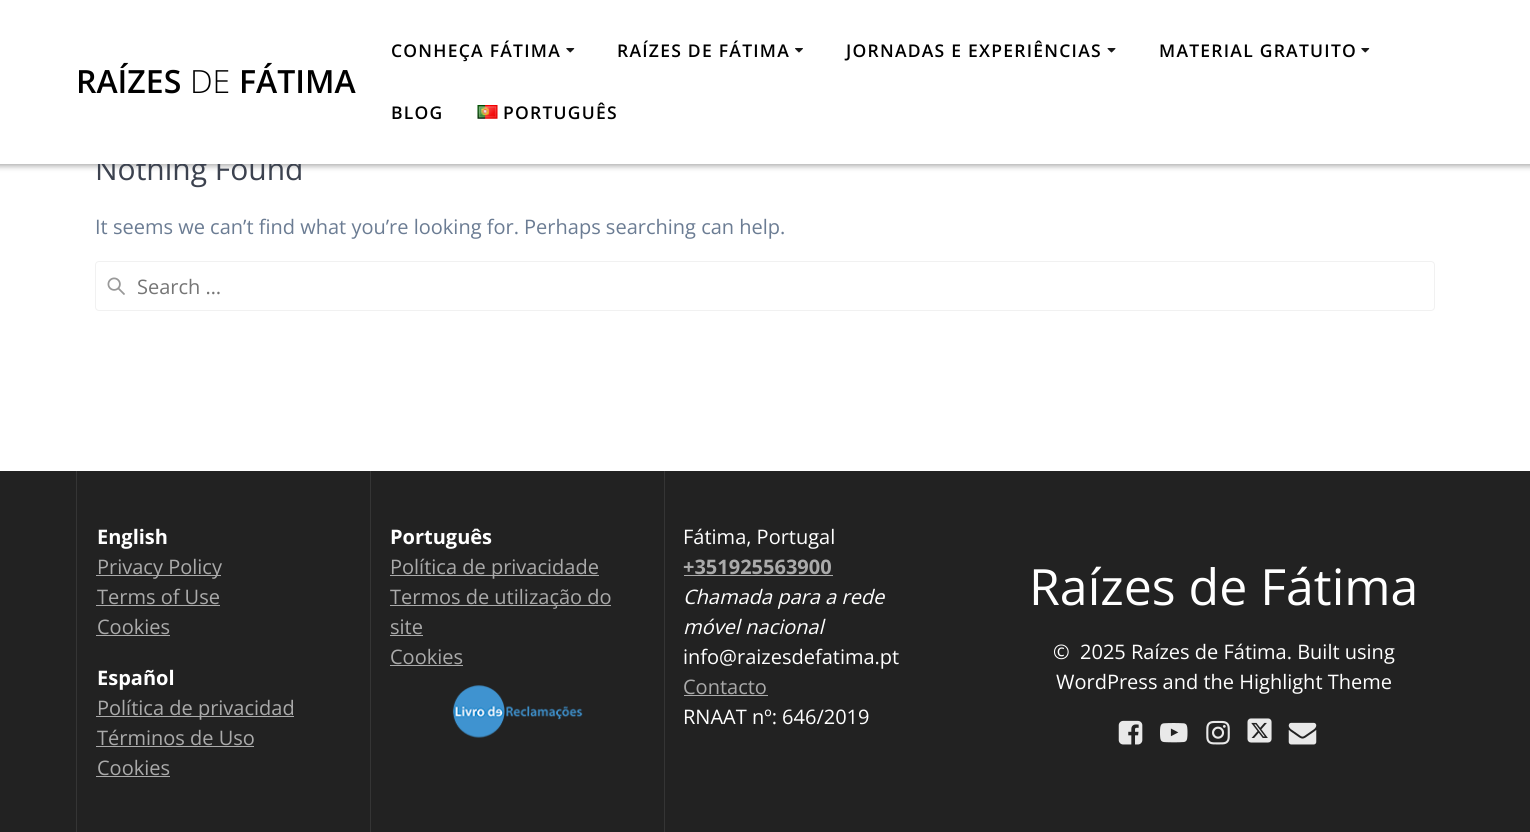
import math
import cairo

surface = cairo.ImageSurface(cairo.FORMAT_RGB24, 1530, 832)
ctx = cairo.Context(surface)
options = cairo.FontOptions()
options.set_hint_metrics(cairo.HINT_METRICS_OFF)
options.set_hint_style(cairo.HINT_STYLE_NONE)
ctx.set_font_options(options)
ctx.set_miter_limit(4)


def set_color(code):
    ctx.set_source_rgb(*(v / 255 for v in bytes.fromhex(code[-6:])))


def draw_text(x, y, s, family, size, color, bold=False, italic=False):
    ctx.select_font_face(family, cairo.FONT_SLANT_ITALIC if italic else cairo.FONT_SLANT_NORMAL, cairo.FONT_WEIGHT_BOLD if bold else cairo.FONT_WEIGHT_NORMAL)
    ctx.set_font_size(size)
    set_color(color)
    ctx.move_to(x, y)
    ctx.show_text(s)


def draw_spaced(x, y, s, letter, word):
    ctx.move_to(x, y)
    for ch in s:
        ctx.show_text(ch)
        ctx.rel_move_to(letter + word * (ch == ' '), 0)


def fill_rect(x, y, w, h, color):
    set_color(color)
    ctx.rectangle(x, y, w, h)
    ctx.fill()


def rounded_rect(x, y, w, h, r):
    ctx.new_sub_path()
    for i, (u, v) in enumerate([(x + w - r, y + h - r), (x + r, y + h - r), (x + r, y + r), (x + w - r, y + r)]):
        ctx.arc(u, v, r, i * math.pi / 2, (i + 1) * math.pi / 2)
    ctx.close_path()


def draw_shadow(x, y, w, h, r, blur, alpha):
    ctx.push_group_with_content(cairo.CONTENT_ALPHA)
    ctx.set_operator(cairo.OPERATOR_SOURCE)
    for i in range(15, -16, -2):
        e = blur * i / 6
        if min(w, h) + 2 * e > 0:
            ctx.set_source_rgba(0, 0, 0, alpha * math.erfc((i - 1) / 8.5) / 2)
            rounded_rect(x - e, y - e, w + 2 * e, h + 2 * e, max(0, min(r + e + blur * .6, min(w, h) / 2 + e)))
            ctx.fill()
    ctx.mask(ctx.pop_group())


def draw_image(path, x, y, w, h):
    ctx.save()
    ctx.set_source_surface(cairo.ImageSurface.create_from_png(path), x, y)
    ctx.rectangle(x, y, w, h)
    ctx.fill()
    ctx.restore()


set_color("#ffffff")
ctx.paint()
set_color("#000000")
draw_shadow(-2, -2, 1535, 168, 0, 3, 0.33)
draw_text(95, 180, "Nothing Found", "Open Sans", 30, "#3c424f")
fill_rect(0, 0, 1530, 164, "#ffffff")
draw_text(76, 93, "RAÍZES", "Open Sans SemiBold", 32, "#000000")
draw_text(190, 93, "DE", "Open Sans Light", 32, "#000000")
draw_text(239, 93, "FÁTIMA", "Open Sans SemiBold", 32, "#000000")
ctx.set_font_size(17.5)
draw_spaced(391, 57, "CONHEÇA FÁTIMA", 1.25, 0)
draw_image("assets/img1.png", 566, 48, 9, 5)
draw_spaced(617, 57, "RAÍZES DE FÁTIMA", 1.25, 0)
draw_image("assets/img2.png", 795, 48, 8, 5)
draw_spaced(846, 57, "JORNADAS E EXPERIÊNCIAS", 1.25, 0)
draw_image("assets/img3.png", 1107, 48, 9, 5)
draw_spaced(1159, 57, "MATERIAL GRATUITO", 1.25, 0)
draw_image("assets/img1.png", 1361, 48, 9, 5)
draw_spaced(391, 119, "BLOG", 1.25, 0)
draw_image("assets/img4.png", 477, 105, 21, 14)
draw_spaced(503, 119, "PORTUGUÊS", 1.25, 0)
draw_text(95, 234, "It seems we can’t find what you’re looking for. Perhaps searching can help.", "Open Sans", 20, "#6b7c93")
draw_image("assets/img5.png", 107, 277, 18, 18)
rounded_rect(95.5, 261.5, 1339, 49, 3.5)
set_color("#f1f1f1")
ctx.set_line_width(1)
ctx.stroke()
draw_text(137, 294, "Search …", "Open Sans", 20, "#757575")
fill_rect(0, 471, 1530, 361, "#222222")
fill_rect(76, 471, 1, 361, "#353535")
draw_text(97, 544, "English", "Open Sans", 20, "#ffffff", bold=True)
fill_rect(96, 575, 125, 1, "#aaaaaa")
draw_text(97, 574, "Privacy Policy", "Open Sans", 20, "#aaaaaa")
draw_text(97, 604, "Terms of Use", "Open Sans", 20, "#aaaaaa")
fill_rect(96, 605, 124, 1, "#aaaaaa")
draw_text(97, 634, "Cookies", "Open Sans", 20, "#aaaaaa")
fill_rect(96, 635, 74, 1, "#aaaaaa")
draw_text(97, 685, "Español", "Open Sans", 20, "#ffffff", bold=True)
fill_rect(96, 716, 198, 1, "#aaaaaa")
draw_text(97, 715, "Política de privacidad", "Open Sans", 20, "#aaaaaa")
draw_text(97, 745, "Términos de Uso", "Open Sans", 20, "#aaaaaa")
fill_rect(96, 746, 158, 1, "#aaaaaa")
draw_text(97, 775, "Cookies", "Open Sans", 20, "#aaaaaa")
fill_rect(96, 776, 74, 1, "#aaaaaa")
fill_rect(370, 471, 1, 361, "#353535")
draw_text(390, 544, "Português", "Open Sans", 20, "#ffffff", bold=True)
fill_rect(390, 575, 209, 1, "#aaaaaa")
draw_text(390, 574, "Política de privacidade", "Open Sans", 20, "#aaaaaa")
fill_rect(390, 605, 221, 1, "#aaaaaa")
draw_text(390, 604, "Termos de utilização do", "Open Sans", 20, "#aaaaaa")
draw_text(390, 634, "site", "Open Sans", 20, "#aaaaaa")
fill_rect(390, 635, 33, 1, "#aaaaaa")
draw_text(390, 664, "Cookies", "Open Sans", 20, "#aaaaaa")
fill_rect(390, 665, 73, 1, "#aaaaaa")
draw_image("assets/img6.png", 452, 685, 131, 53)
fill_rect(664, 471, 1, 361, "#353535")
draw_text(683, 544, "Fátima, Portugal", "Open Sans", 20, "#ffffff")
draw_text(683, 574, "+351925563900", "Open Sans", 20, "#aaaaaa", bold=True)
fill_rect(684, 575, 149, 1, "#aaaaaa")
draw_text(683, 604, "Chamada para a rede", "Open Sans", 20, "#ffffff", italic=True)
draw_text(683, 634, "móvel nacional", "Open Sans", 20, "#ffffff", italic=True)
draw_text(683, 664, "info@raizesdefatima.pt", "Open Sans", 20, "#ffffff")
draw_text(683, 694, "Contacto", "Open Sans", 20, "#aaaaaa")
fill_rect(684, 695, 84, 1, "#aaaaaa")
draw_text(683, 724, "RNAAT nº: 646/2019", "Open Sans", 20, "#ffffff")
draw_text(1029, 605, "Raízes de Fátima", "Open Sans", 50, "#ffffff")
draw_text(1053, 659, "©  2025 Raízes de Fátima. Built using", "Open Sans", 20, "#ffffff")
draw_text(1056, 689, "WordPress and the Highlight Theme", "Open Sans", 20, "#ffffff")
draw_image("assets/img7.png", 1118, 720, 25, 25)
draw_image("assets/img8.png", 1160, 723, 28, 20)
draw_image("assets/img9.png", 1206, 720, 24, 25)
draw_image("assets/img10.png", 1247, 718, 25, 25)
draw_image("assets/img11.png", 1288, 722, 29, 23)
surface.write_to_png("output.png")
